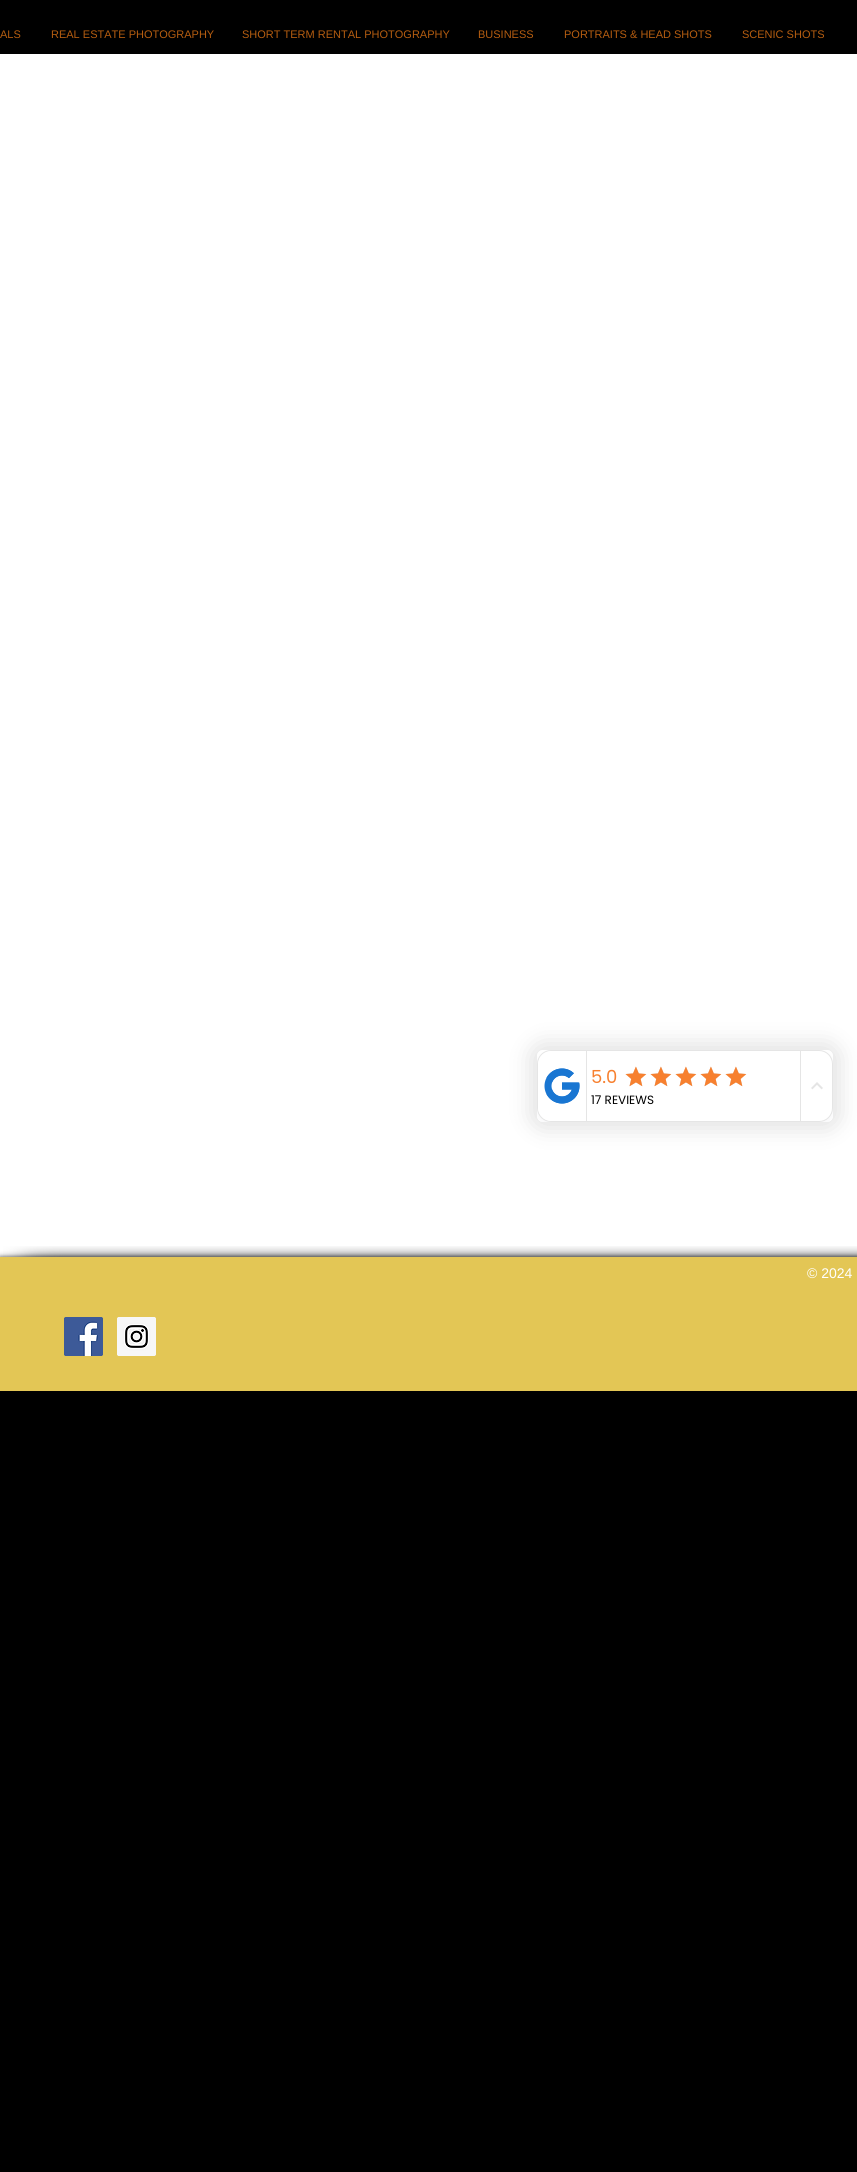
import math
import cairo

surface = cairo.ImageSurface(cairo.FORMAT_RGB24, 857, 2172)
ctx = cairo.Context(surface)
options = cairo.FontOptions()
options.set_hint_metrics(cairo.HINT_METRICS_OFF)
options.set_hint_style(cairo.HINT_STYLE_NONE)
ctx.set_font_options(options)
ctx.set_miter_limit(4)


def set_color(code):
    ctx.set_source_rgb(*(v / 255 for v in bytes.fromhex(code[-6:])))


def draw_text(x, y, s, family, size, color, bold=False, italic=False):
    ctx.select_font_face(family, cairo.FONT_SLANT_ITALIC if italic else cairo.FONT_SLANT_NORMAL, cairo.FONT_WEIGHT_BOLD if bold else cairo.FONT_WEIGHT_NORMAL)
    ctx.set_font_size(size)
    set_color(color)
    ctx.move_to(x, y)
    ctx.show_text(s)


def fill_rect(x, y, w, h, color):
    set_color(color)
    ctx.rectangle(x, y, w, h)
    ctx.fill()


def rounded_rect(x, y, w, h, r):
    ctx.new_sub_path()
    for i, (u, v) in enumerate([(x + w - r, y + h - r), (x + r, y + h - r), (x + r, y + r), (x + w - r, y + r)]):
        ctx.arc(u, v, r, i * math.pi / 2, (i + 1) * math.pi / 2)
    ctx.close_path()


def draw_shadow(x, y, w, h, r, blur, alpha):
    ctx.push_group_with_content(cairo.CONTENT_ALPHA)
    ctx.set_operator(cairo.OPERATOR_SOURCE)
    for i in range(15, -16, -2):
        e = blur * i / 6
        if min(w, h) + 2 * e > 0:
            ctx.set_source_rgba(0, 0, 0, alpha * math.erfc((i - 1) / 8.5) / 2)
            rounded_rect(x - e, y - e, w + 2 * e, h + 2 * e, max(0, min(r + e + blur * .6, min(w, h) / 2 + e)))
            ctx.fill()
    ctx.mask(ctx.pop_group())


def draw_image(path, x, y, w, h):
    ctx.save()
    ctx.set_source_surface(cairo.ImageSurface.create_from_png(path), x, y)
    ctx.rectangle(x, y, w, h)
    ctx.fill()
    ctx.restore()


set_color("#000000")
ctx.paint()
draw_text(0, 38, "ALS", "Liberation Sans", 11, "#b55d10")
draw_text(51, 38, "REAL ESTATE PHOTOGRAPHY", "Liberation Sans", 11, "#b55d10")
draw_text(242, 38, "SHORT TERM RENTAL PHOTOGRAPHY", "Liberation Sans", 11, "#b55d10")
draw_text(478, 38, "BUSINESS", "Liberation Sans", 11, "#b55d10")
draw_text(564, 38, "PORTRAITS & HEAD SHOTS", "Liberation Sans", 11, "#b55d10")
draw_text(742, 38, "SCENIC SHOTS", "Liberation Sans", 11, "#b55d10")
fill_rect(0, 54, 857, 1203, "#ffffff")
set_color("#000000")
draw_shadow(0, 1257, 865, 134, 0, 2.5, 0.7)
fill_rect(0, 1257, 857, 134, "#e3c655")
draw_image("assets/img1.png", 3, 1246, 97, 11)
draw_image("assets/img2.png", 100, 1246, 757, 11)
draw_text(807, 1278, "© 2024", "Liberation Sans", 14, "#ffffff")
draw_image("assets/img3.png", 64, 1317, 39, 39)
draw_image("assets/img4.png", 117, 1317, 39, 39)
ctx.save()
ctx.set_fill_rule(cairo.FILL_RULE_EVEN_ODD)
ctx.new_path()
ctx.move_to(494, 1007)
ctx.line_to(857, 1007)
ctx.line_to(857, 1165)
ctx.line_to(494, 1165)
ctx.close_path()
ctx.move_to(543, 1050)
ctx.line_to(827, 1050)
ctx.curve_to(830.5, 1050, 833, 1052.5, 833, 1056)
ctx.line_to(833, 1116)
ctx.curve_to(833, 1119.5, 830.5, 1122, 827, 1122)
ctx.line_to(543, 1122)
ctx.curve_to(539.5, 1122, 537, 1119.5, 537, 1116)
ctx.line_to(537, 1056)
ctx.curve_to(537, 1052.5, 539.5, 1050, 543, 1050)
ctx.close_path()
ctx.clip()
set_color("#000000")
draw_shadow(531, 1044, 308, 84, 12, 12, 0.12)
ctx.restore()
ctx.save()
rounded_rect(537, 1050, 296, 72, 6)
ctx.clip()
set_color("#4c4c6d")
draw_shadow(537, 1054, 296, 72, 14, 6, 0.06)
ctx.restore()
rounded_rect(537.5, 1050.5, 295, 71, 13.5)
ctx.fill_preserve()
set_color("#e5e5e5")
ctx.set_line_width(1)
ctx.stroke()
set_color("#ffffff")
ctx.new_path()
ctx.move_to(552, 1051)
ctx.line_to(587, 1051)
ctx.line_to(587, 1121)
ctx.line_to(552, 1121)
ctx.curve_to(544.5, 1121, 538, 1114.5, 538, 1107)
ctx.line_to(538, 1065)
ctx.curve_to(538, 1057.5, 544.5, 1051, 552, 1051)
ctx.close_path()
ctx.fill()
fill_rect(586, 1051, 1, 70, "#e5e5e5")
draw_image("assets/img5.png", 544, 1068, 36, 36)
fill_rect(800, 1051, 1, 70, "#e5e5e5")
draw_text(591, 1083, "5.0", "Poppins", 18, "#f7802f")
draw_image("assets/img7.png", 625, 1067, 21, 19)
draw_image("assets/img6.png", 625, 1066, 22, 21)
draw_image("assets/img7.png", 650, 1067, 21, 19)
draw_image("assets/img6.png", 650, 1066, 22, 21)
draw_image("assets/img7.png", 675, 1067, 21, 19)
draw_image("assets/img6.png", 675, 1066, 22, 21)
draw_image("assets/img7.png", 700, 1067, 21, 19)
draw_image("assets/img6.png", 700, 1066, 22, 21)
draw_image("assets/img7.png", 725, 1067, 21, 19)
draw_image("assets/img6.png", 725, 1066, 22, 21)
draw_text(591, 1104, "17 REVIEWS", "Poppins", 12, "#000000")
draw_image("assets/img8.png", 811, 1082, 12, 8)
surface.write_to_png("output.png")
